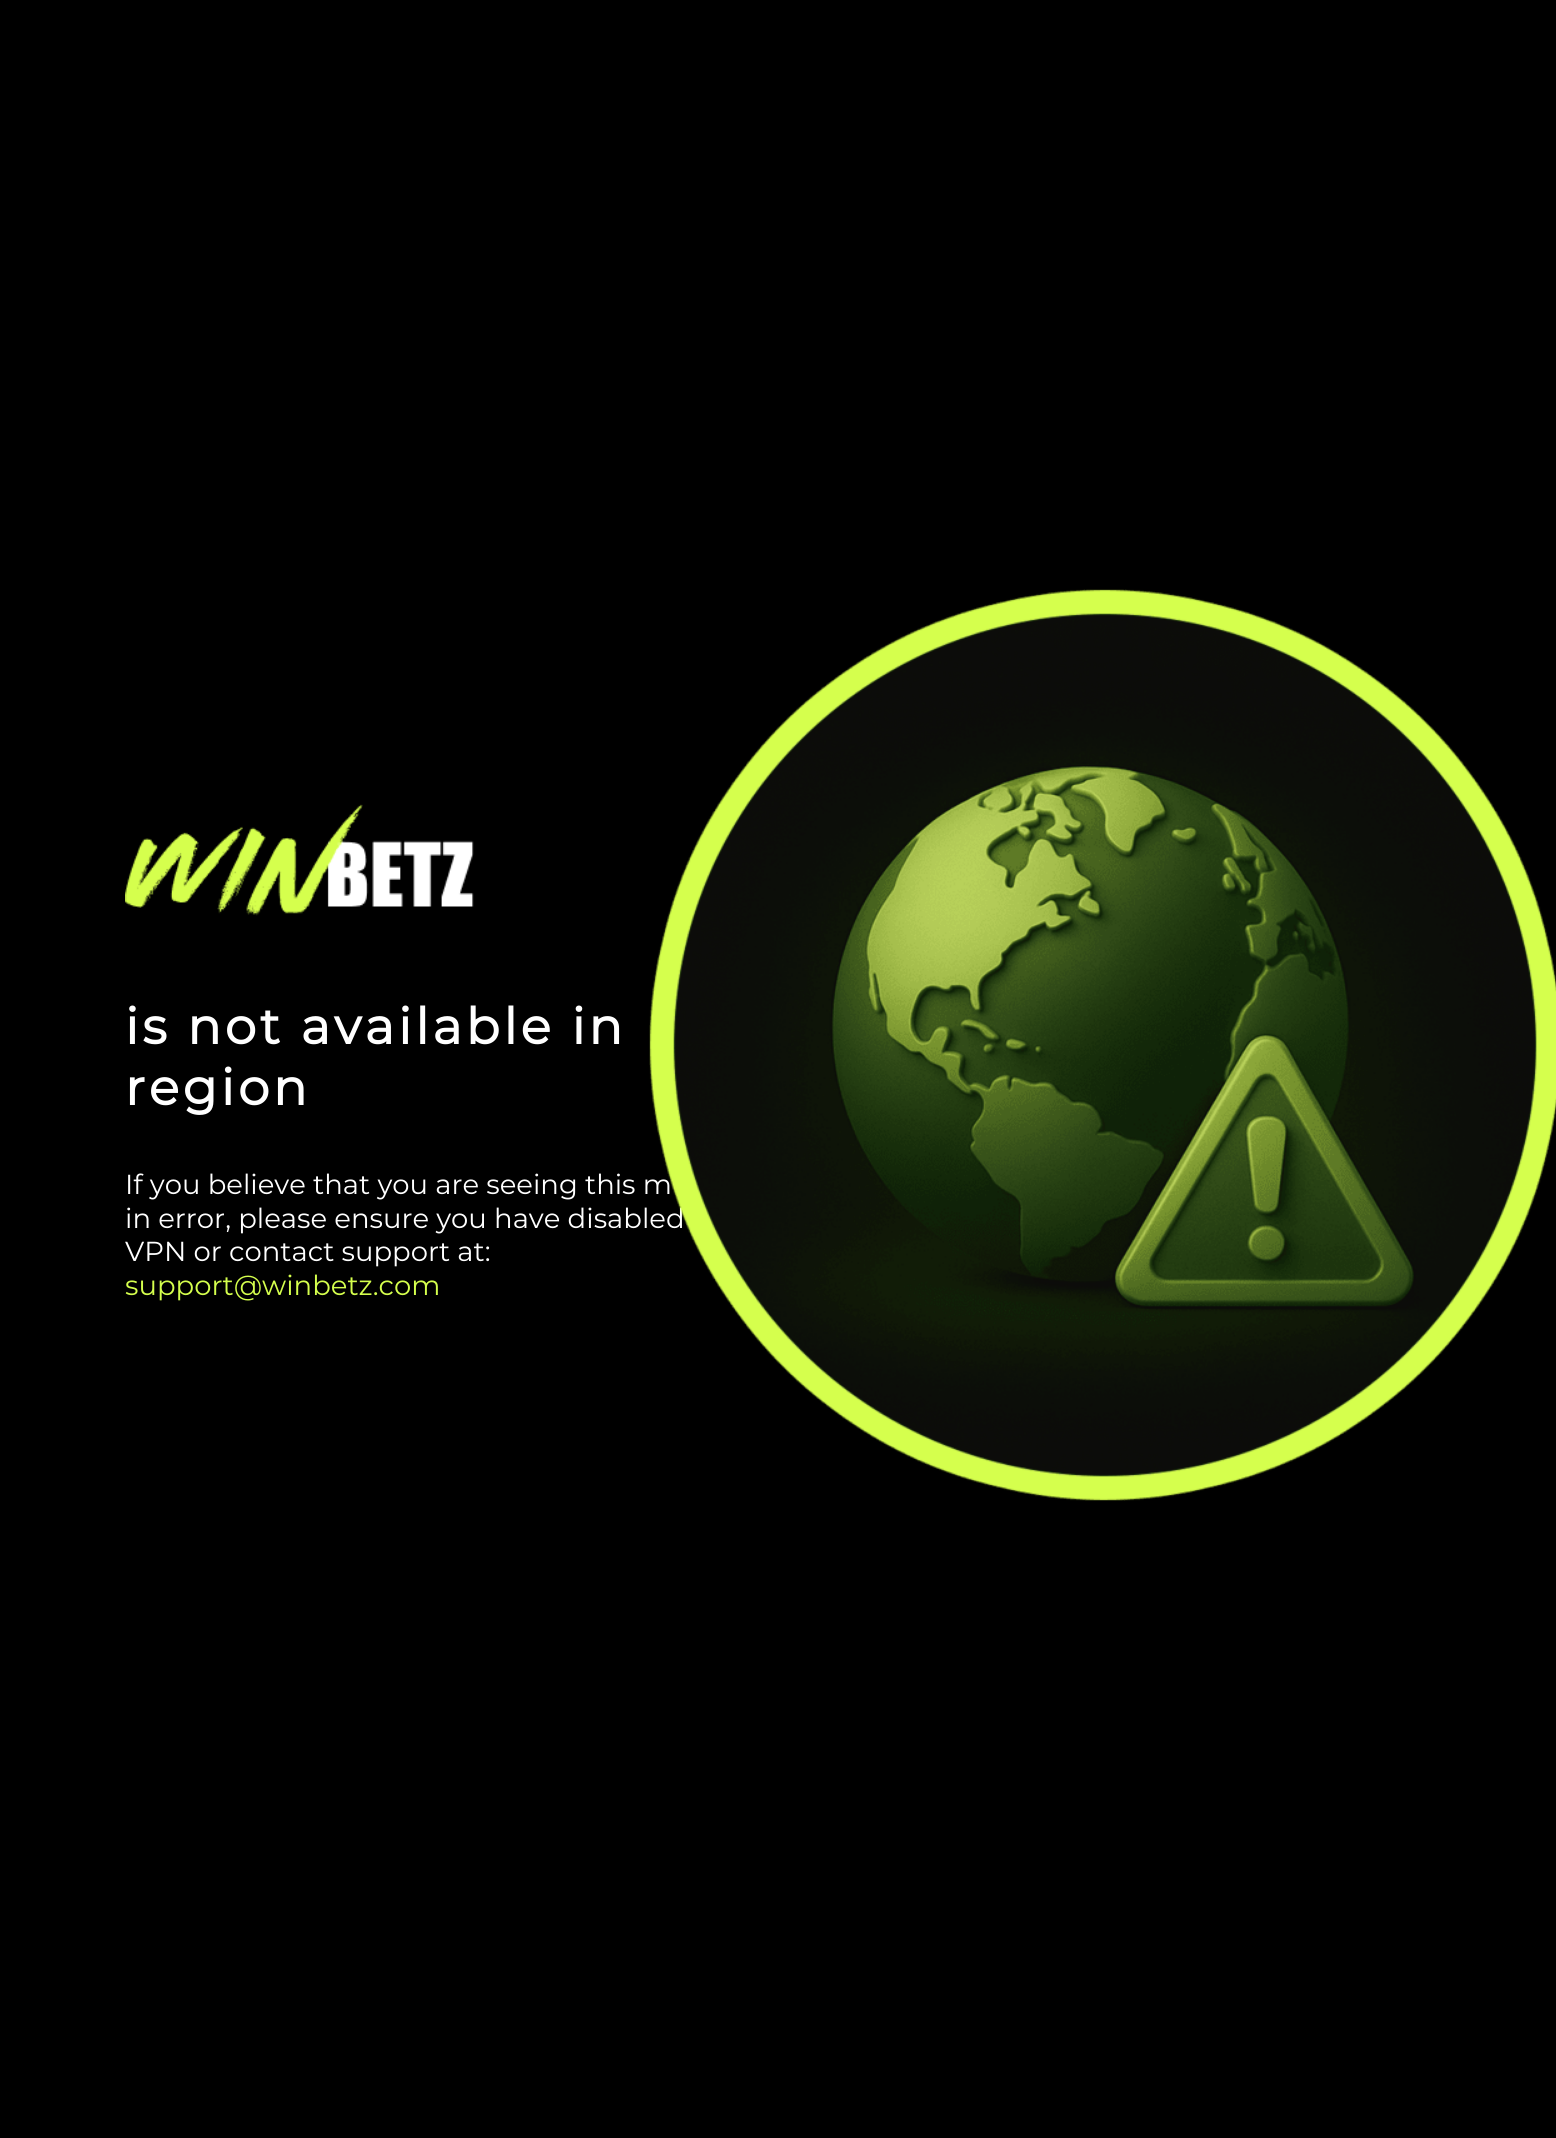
import math
import cairo

surface = cairo.ImageSurface(cairo.FORMAT_RGB24, 1556, 2138)
ctx = cairo.Context(surface)
options = cairo.FontOptions()
options.set_hint_metrics(cairo.HINT_METRICS_OFF)
options.set_hint_style(cairo.HINT_STYLE_NONE)
ctx.set_font_options(options)
ctx.set_miter_limit(4)


def set_color(code):
    ctx.set_source_rgb(*(v / 255 for v in bytes.fromhex(code[-6:])))


def draw_text(x, y, s, family, size, color, bold=False, italic=False):
    ctx.select_font_face(family, cairo.FONT_SLANT_ITALIC if italic else cairo.FONT_SLANT_NORMAL, cairo.FONT_WEIGHT_BOLD if bold else cairo.FONT_WEIGHT_NORMAL)
    ctx.set_font_size(size)
    set_color(color)
    ctx.move_to(x, y)
    ctx.show_text(s)


def draw_spaced(x, y, s, letter, word):
    ctx.move_to(x, y)
    for ch in s:
        ctx.show_text(ch)
        ctx.rel_move_to(letter + word * (ch == ' '), 0)


def draw_image(path, x, y, w, h):
    ctx.save()
    ctx.set_source_surface(cairo.ImageSurface.create_from_png(path), x, y)
    ctx.rectangle(x, y, w, h)
    ctx.fill()
    ctx.restore()


set_color("#000000")
ctx.paint()
draw_image("assets/img1.png", 125, 804, 349, 112)
ctx.select_font_face("Montserrat", cairo.FONT_SLANT_NORMAL, cairo.FONT_WEIGHT_BOLD)
ctx.set_font_size(50)
set_color("#ffffff")
draw_spaced(125, 1044, "is not available in", 3.75, 0)
draw_spaced(125, 1105, "region", 3.75, 0)
draw_text(125, 1194, "If you believe that you are seeing this m", "Montserrat", 27.5, "#ffffff")
draw_text(125, 1228, "in error, please ensure you have disabled", "Montserrat", 27.5, "#ffffff")
draw_text(125, 1261, "VPN or contact support at:", "Montserrat", 27.5, "#ffffff")
draw_text(125, 1295, "support@winbetz.com", "Montserrat", 27.5, "#d5ff4d")
draw_image("assets/img2.png", 649, 589, 907, 912)
surface.write_to_png("output.png")
